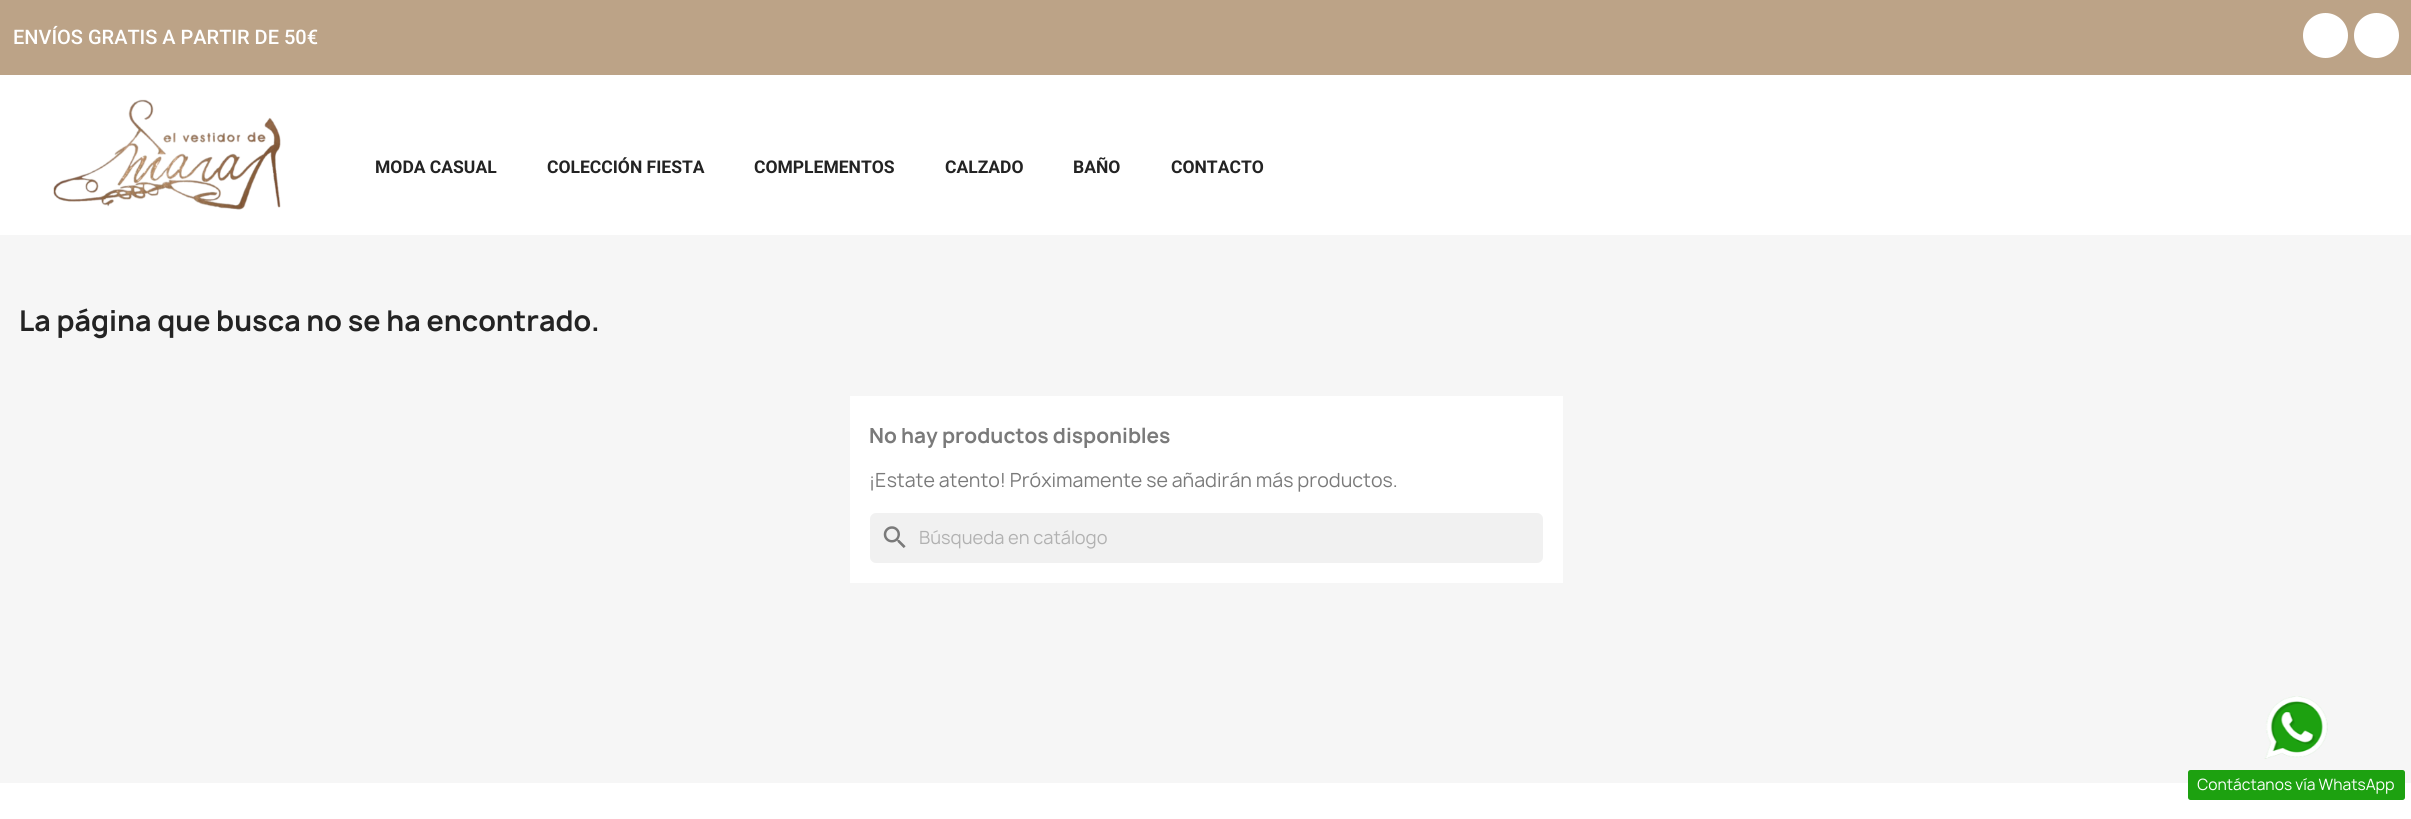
import math
import cairo

surface = cairo.ImageSurface(cairo.FORMAT_RGB24, 2411, 819)
ctx = cairo.Context(surface)
options = cairo.FontOptions()
options.set_hint_metrics(cairo.HINT_METRICS_OFF)
options.set_hint_style(cairo.HINT_STYLE_NONE)
ctx.set_font_options(options)
ctx.set_miter_limit(4)


def set_color(code):
    ctx.set_source_rgb(*(v / 255 for v in bytes.fromhex(code[-6:])))


def draw_text(x, y, s, family, size, color, bold=False, italic=False):
    ctx.select_font_face(family, cairo.FONT_SLANT_ITALIC if italic else cairo.FONT_SLANT_NORMAL, cairo.FONT_WEIGHT_BOLD if bold else cairo.FONT_WEIGHT_NORMAL)
    ctx.set_font_size(size)
    set_color(color)
    ctx.move_to(x, y)
    ctx.show_text(s)


def fill_rect(x, y, w, h, color):
    set_color(color)
    ctx.rectangle(x, y, w, h)
    ctx.fill()


def rounded_rect(x, y, w, h, r):
    ctx.new_sub_path()
    for i, (u, v) in enumerate([(x + w - r, y + h - r), (x + r, y + h - r), (x + r, y + r), (x + w - r, y + r)]):
        ctx.arc(u, v, r, i * math.pi / 2, (i + 1) * math.pi / 2)
    ctx.close_path()


def draw_image(path, x, y, w, h):
    ctx.save()
    ctx.set_source_surface(cairo.ImageSurface.create_from_png(path), x, y)
    ctx.rectangle(x, y, w, h)
    ctx.fill()
    ctx.restore()


set_color("#ffffff")
ctx.paint()
fill_rect(0, 0, 2411, 75, "#bca387")
draw_text(13, 44, "ENVÍOS GRATIS A PARTIR DE 50€", "Roboto Medium", 20, "#ffffff")
ctx.new_path()
ctx.arc(2325.5, 35.5, 22.5, 0, 2 * math.pi)
ctx.fill()
ctx.arc(2376.5, 35.5, 22.5, 0, 2 * math.pi)
ctx.fill()
draw_image("assets/img1.png", 53, 99, 228, 111)
draw_text(375, 173, "MODA CASUAL", "Roboto", 17.5, "#232323", bold=True)
draw_text(547, 173, "COLECCIÓN FIESTA", "Roboto", 17.5, "#232323", bold=True)
draw_text(754, 173, "COMPLEMENTOS", "Roboto", 17.5, "#232323", bold=True)
draw_text(945, 173, "CALZADO", "Roboto", 17.5, "#232323", bold=True)
draw_text(1073, 173, "BAÑO", "Roboto", 17.5, "#232323", bold=True)
draw_text(1171, 173, "CONTACTO", "Roboto", 17.5, "#232323", bold=True)
fill_rect(0, 235, 2411, 548, "#f6f6f6")
draw_image("assets/img2.png", 2264, 696, 64, 63)
set_color("#1da110")
rounded_rect(2188, 770, 217, 30, 2.5)
ctx.fill()
draw_text(2197, 790, "Contáctanos vía WhatsApp", "Manrope", 15, "#ffffff")
draw_text(19, 331, "La página que busca no se ha encontrado.", "Manrope", 27.5, "#232323", bold=True)
fill_rect(850, 396, 713, 187, "#ffffff")
draw_text(869, 443, "No hay productos disponibles", "Manrope", 20, "#7a7a7a", bold=True)
draw_text(869, 487, "¡Estate atento! Próximamente se añadirán más productos.", "Manrope", 18.75, "#7a7a7a")
set_color("#f1f1f1")
rounded_rect(870, 513, 673, 50, 6)
ctx.fill()
draw_image("assets/img3.png", 883, 526, 23, 22)
draw_text(919, 544, "Búsqueda en catálogo", "Manrope", 17.5, "#b1b1b1")
surface.write_to_png("output.png")
